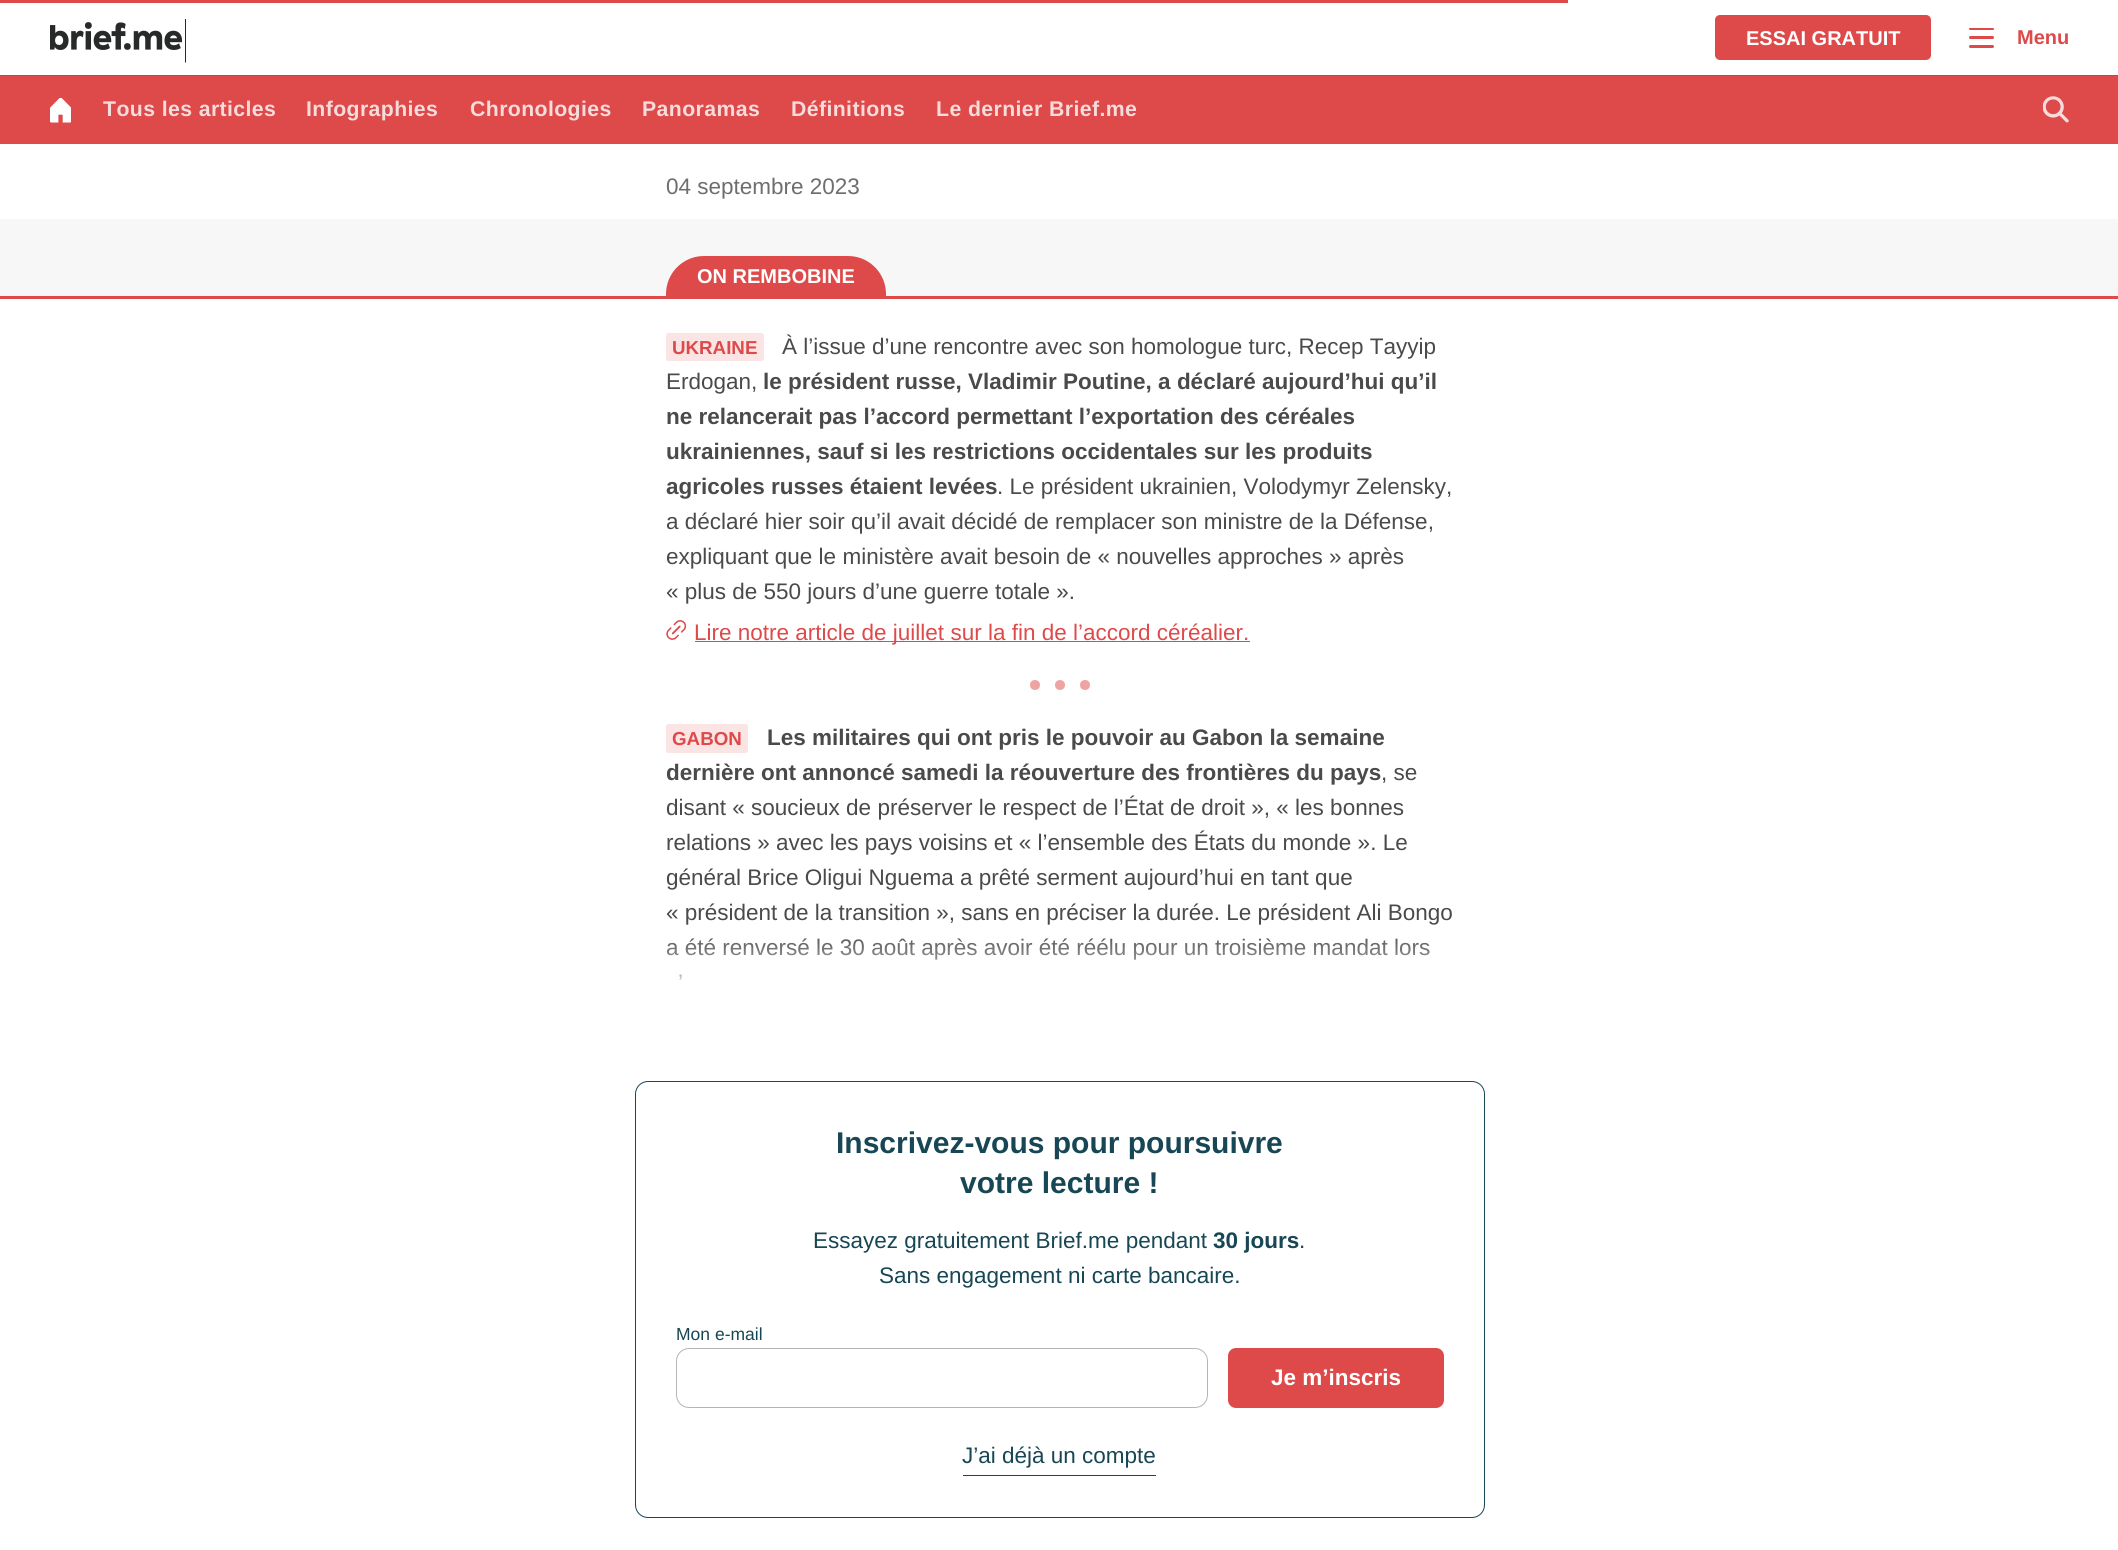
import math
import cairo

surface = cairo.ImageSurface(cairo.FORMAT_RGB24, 2118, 1550)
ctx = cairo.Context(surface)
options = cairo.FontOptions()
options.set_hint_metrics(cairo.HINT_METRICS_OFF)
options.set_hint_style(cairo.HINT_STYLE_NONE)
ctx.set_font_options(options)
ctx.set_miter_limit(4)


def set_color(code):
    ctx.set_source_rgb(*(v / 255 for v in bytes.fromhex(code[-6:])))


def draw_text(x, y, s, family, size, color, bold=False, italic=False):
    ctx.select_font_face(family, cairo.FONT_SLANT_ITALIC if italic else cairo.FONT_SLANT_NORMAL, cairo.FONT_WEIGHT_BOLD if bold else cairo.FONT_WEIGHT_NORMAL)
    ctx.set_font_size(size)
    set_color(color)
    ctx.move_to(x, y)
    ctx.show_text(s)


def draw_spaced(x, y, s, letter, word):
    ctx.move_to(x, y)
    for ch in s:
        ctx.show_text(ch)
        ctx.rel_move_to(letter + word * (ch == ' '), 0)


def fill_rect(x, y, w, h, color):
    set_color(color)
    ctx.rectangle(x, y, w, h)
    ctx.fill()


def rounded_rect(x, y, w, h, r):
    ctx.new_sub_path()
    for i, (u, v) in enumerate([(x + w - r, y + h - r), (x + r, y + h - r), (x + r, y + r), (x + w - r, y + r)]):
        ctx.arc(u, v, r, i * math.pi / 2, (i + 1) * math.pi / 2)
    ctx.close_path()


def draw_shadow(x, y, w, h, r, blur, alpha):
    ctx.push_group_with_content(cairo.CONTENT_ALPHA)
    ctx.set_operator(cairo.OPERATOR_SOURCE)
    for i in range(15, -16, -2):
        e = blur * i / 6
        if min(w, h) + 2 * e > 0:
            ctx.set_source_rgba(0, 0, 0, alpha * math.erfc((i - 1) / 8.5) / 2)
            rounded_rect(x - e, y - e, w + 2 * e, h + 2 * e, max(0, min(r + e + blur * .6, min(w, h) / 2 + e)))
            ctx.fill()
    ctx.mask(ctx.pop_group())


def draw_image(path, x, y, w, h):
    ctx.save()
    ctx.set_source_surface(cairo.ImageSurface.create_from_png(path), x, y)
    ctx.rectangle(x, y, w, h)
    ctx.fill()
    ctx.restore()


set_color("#ffffff")
ctx.paint()
fill_rect(0, 75, 2118, 69, "#de4949")
ctx.save()
ctx.rectangle(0, 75, 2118, 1)
ctx.clip()
set_color("#000000")
draw_shadow(0, 1, 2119, 75, 0, 0.5, 0.11)
ctx.restore()
fill_rect(0, 0, 1568, 3, "#de4949")
draw_image("assets/img1.png", 50, 19, 136, 44)
rounded_rect(1715, 15, 216, 45, 5)
ctx.fill()
draw_text(1746, 45, "ESSAI GRATUIT", "Liberation Sans", 20, "#ffffff", bold=True)
set_color("#de4949")
rounded_rect(1969, 28, 25, 2, 1)
ctx.fill()
rounded_rect(1969, 36, 25, 3, 1.5)
ctx.fill()
rounded_rect(1969, 45, 25, 3, 1.5)
ctx.fill()
draw_text(2017, 44, "Menu", "Liberation Sans", 20, "#de4949", bold=True)
draw_image("assets/img2.png", 50, 98, 21, 25)
ctx.set_font_size(21.25)
set_color("#f8dbdb")
draw_spaced(103, 116, "Tous les articles", 0.4, 0)
draw_spaced(306, 116, "Infographies", 0.4, 0)
draw_spaced(470, 116, "Chronologies", 0.4, 0)
draw_spaced(642, 116, "Panoramas", 0.4, 0)
draw_spaced(791, 116, "Définitions", 0.4, 0)
draw_spaced(936, 116, "Le dernier Brief.me", 0.4, 0)
draw_image("assets/img3.png", 2043, 96, 26, 27)
draw_text(666, 194, "04 septembre 2023", "Liberation Sans", 22.5, "#6e6e6e")
fill_rect(0, 219, 2118, 77, "#f7f7f7")
set_color("#de4949")
ctx.new_path()
ctx.move_to(704, 256)
ctx.line_to(848, 256)
ctx.curve_to(869, 256, 886, 273, 886, 294)
ctx.line_to(886, 296)
ctx.line_to(666, 296)
ctx.line_to(666, 294)
ctx.curve_to(666, 273, 683, 256, 704, 256)
ctx.close_path()
ctx.fill()
draw_text(697, 283, "ON REMBOBINE", "Liberation Sans", 20, "#ffffff", bold=True)
fill_rect(0, 296, 2118, 3, "#de4949")
set_color("#fae4e4")
rounded_rect(666, 333, 98, 28, 2.5)
ctx.fill()
draw_text(672, 354, "UKRAINE", "Liberation Sans", 18.75, "#de4949", bold=True)
draw_text(782, 354, "À l’issue d’une rencontre avec son homologue turc, Recep Tayyip", "Liberation Sans", 22.5, "#4a4a4a")
draw_text(666, 389, "Erdogan,", "Liberation Sans", 22.5, "#4a4a4a")
draw_text(763, 389, "le président russe, Vladimir Poutine, a déclaré aujourd’hui qu’il", "Liberation Sans", 22.5, "#4a4a4a", bold=True)
draw_text(666, 424, "ne relancerait pas l’accord permettant l’exportation des céréales", "Liberation Sans", 22.5, "#4a4a4a", bold=True)
draw_text(666, 459, "ukrainiennes, sauf si les restrictions occidentales sur les produits", "Liberation Sans", 22.5, "#4a4a4a", bold=True)
draw_text(666, 494, "agricoles russes étaient levées", "Liberation Sans", 22.5, "#4a4a4a", bold=True)
draw_text(997, 494, ". Le président ukrainien, Volodymyr Zelensky,", "Liberation Sans", 22.5, "#4a4a4a")
draw_text(666, 529, "a déclaré hier soir qu’il avait décidé de remplacer son ministre de la Défense,", "Liberation Sans", 22.5, "#4a4a4a")
draw_text(666, 564, "expliquant que le ministère avait besoin de « nouvelles approches » après", "Liberation Sans", 22.5, "#4a4a4a")
draw_text(666, 599, "« plus de 550 jours d’une guerre totale ».", "Liberation Sans", 22.5, "#4a4a4a")
draw_image("assets/img4.png", 666, 620, 20, 20)
fill_rect(695, 641, 555, 1, "#de4949")
draw_text(694, 640, "Lire notre article de juillet sur la fin de l’accord céréalier.", "Liberation Sans", 22.5, "#de4949")
set_color("#efa4a4")
ctx.new_path()
ctx.arc(1035, 685, 5, 0, 2 * math.pi)
ctx.fill()
ctx.arc(1060, 685, 5, 0, 2 * math.pi)
ctx.fill()
ctx.arc(1085, 685, 5, 0, 2 * math.pi)
ctx.fill()
set_color("#fae4e4")
rounded_rect(666, 724, 82, 29, 2.5)
ctx.fill()
draw_text(672, 745, "GABON", "Liberation Sans", 18.75, "#de4949", bold=True)
draw_text(767, 745, "Les militaires qui ont pris le pouvoir au Gabon la semaine", "Liberation Sans", 22.5, "#4a4a4a", bold=True)
draw_text(666, 780, "dernière ont annoncé samedi la réouverture des frontières du pays", "Liberation Sans", 22.5, "#4a4a4a", bold=True)
draw_text(1381, 780, ", se", "Liberation Sans", 22.5, "#4a4a4a")
draw_text(666, 815, "disant « soucieux de préserver le respect de l’État de droit », « les bonnes", "Liberation Sans", 22.5, "#4a4a4a")
draw_text(666, 850, "relations » avec les pays voisins et « l’ensemble des États du monde ». Le", "Liberation Sans", 22.5, "#4a4a4a")
draw_text(666, 885, "général Brice Oligui Nguema a prêté serment aujourd’hui en tant que", "Liberation Sans", 22.5, "#4a4a4a")
draw_text(666, 920, "« président de la transition », sans en préciser la durée. Le président Ali Bongo", "Liberation Sans", 22.5, "#4a4a4a")
draw_text(666, 955, "a été renversé le 30 août après avoir été réélu pour un troisième mandat lors", "Liberation Sans", 22.5, "#4a4a4a")
draw_text(678, 990, "’", "Liberation Sans", 22.5, "#4a4a4a")
rounded_rect(635.5, 1081.5, 849, 436, 12.5)
set_color("#174654")
ctx.set_line_width(1)
ctx.stroke()
gradient = cairo.LinearGradient(1060, 931, 1060, 1081)
gradient.add_color_stop_rgba(0, 1, 1, 1, 0)
gradient.add_color_stop_rgba(0.5, 1, 1, 1, 1)
gradient.add_color_stop_rgba(1, 1, 1, 1, 1)
ctx.set_source(gradient)
ctx.rectangle(666, 938, 763, 42)
ctx.fill()
draw_text(836, 1153, "Inscrivez-vous pour poursuivre", "Liberation Sans", 30, "#174654", bold=True)
draw_text(960, 1193, "votre lecture !", "Liberation Sans", 30, "#174654", bold=True)
draw_text(813, 1248, "Essayez gratuitement Brief.me pendant", "Liberation Sans", 22.5, "#174654")
draw_text(1213, 1248, "30 jours", "Liberation Sans", 22.5, "#174654", bold=True)
draw_text(1299, 1248, ".", "Liberation Sans", 22.5, "#174654")
draw_text(879, 1283, "Sans engagement ni carte bancaire.", "Liberation Sans", 22.5, "#174654")
draw_text(676, 1340, "Mon e-mail", "Liberation Sans", 17.5, "#174654")
rounded_rect(676.5, 1348.5, 531, 59, 12.5)
set_color("#b5b5b8")
ctx.stroke()
set_color("#de4949")
rounded_rect(1228, 1348, 216, 60, 8)
ctx.fill()
draw_text(1271, 1385, "Je m’inscris", "Liberation Sans", 22.5, "#ffffff", bold=True)
fill_rect(963, 1475, 193, 1, "#174654")
draw_text(962, 1463, "J’ai déjà un compte", "Liberation Sans", 22.5, "#174654")
surface.write_to_png("output.png")
